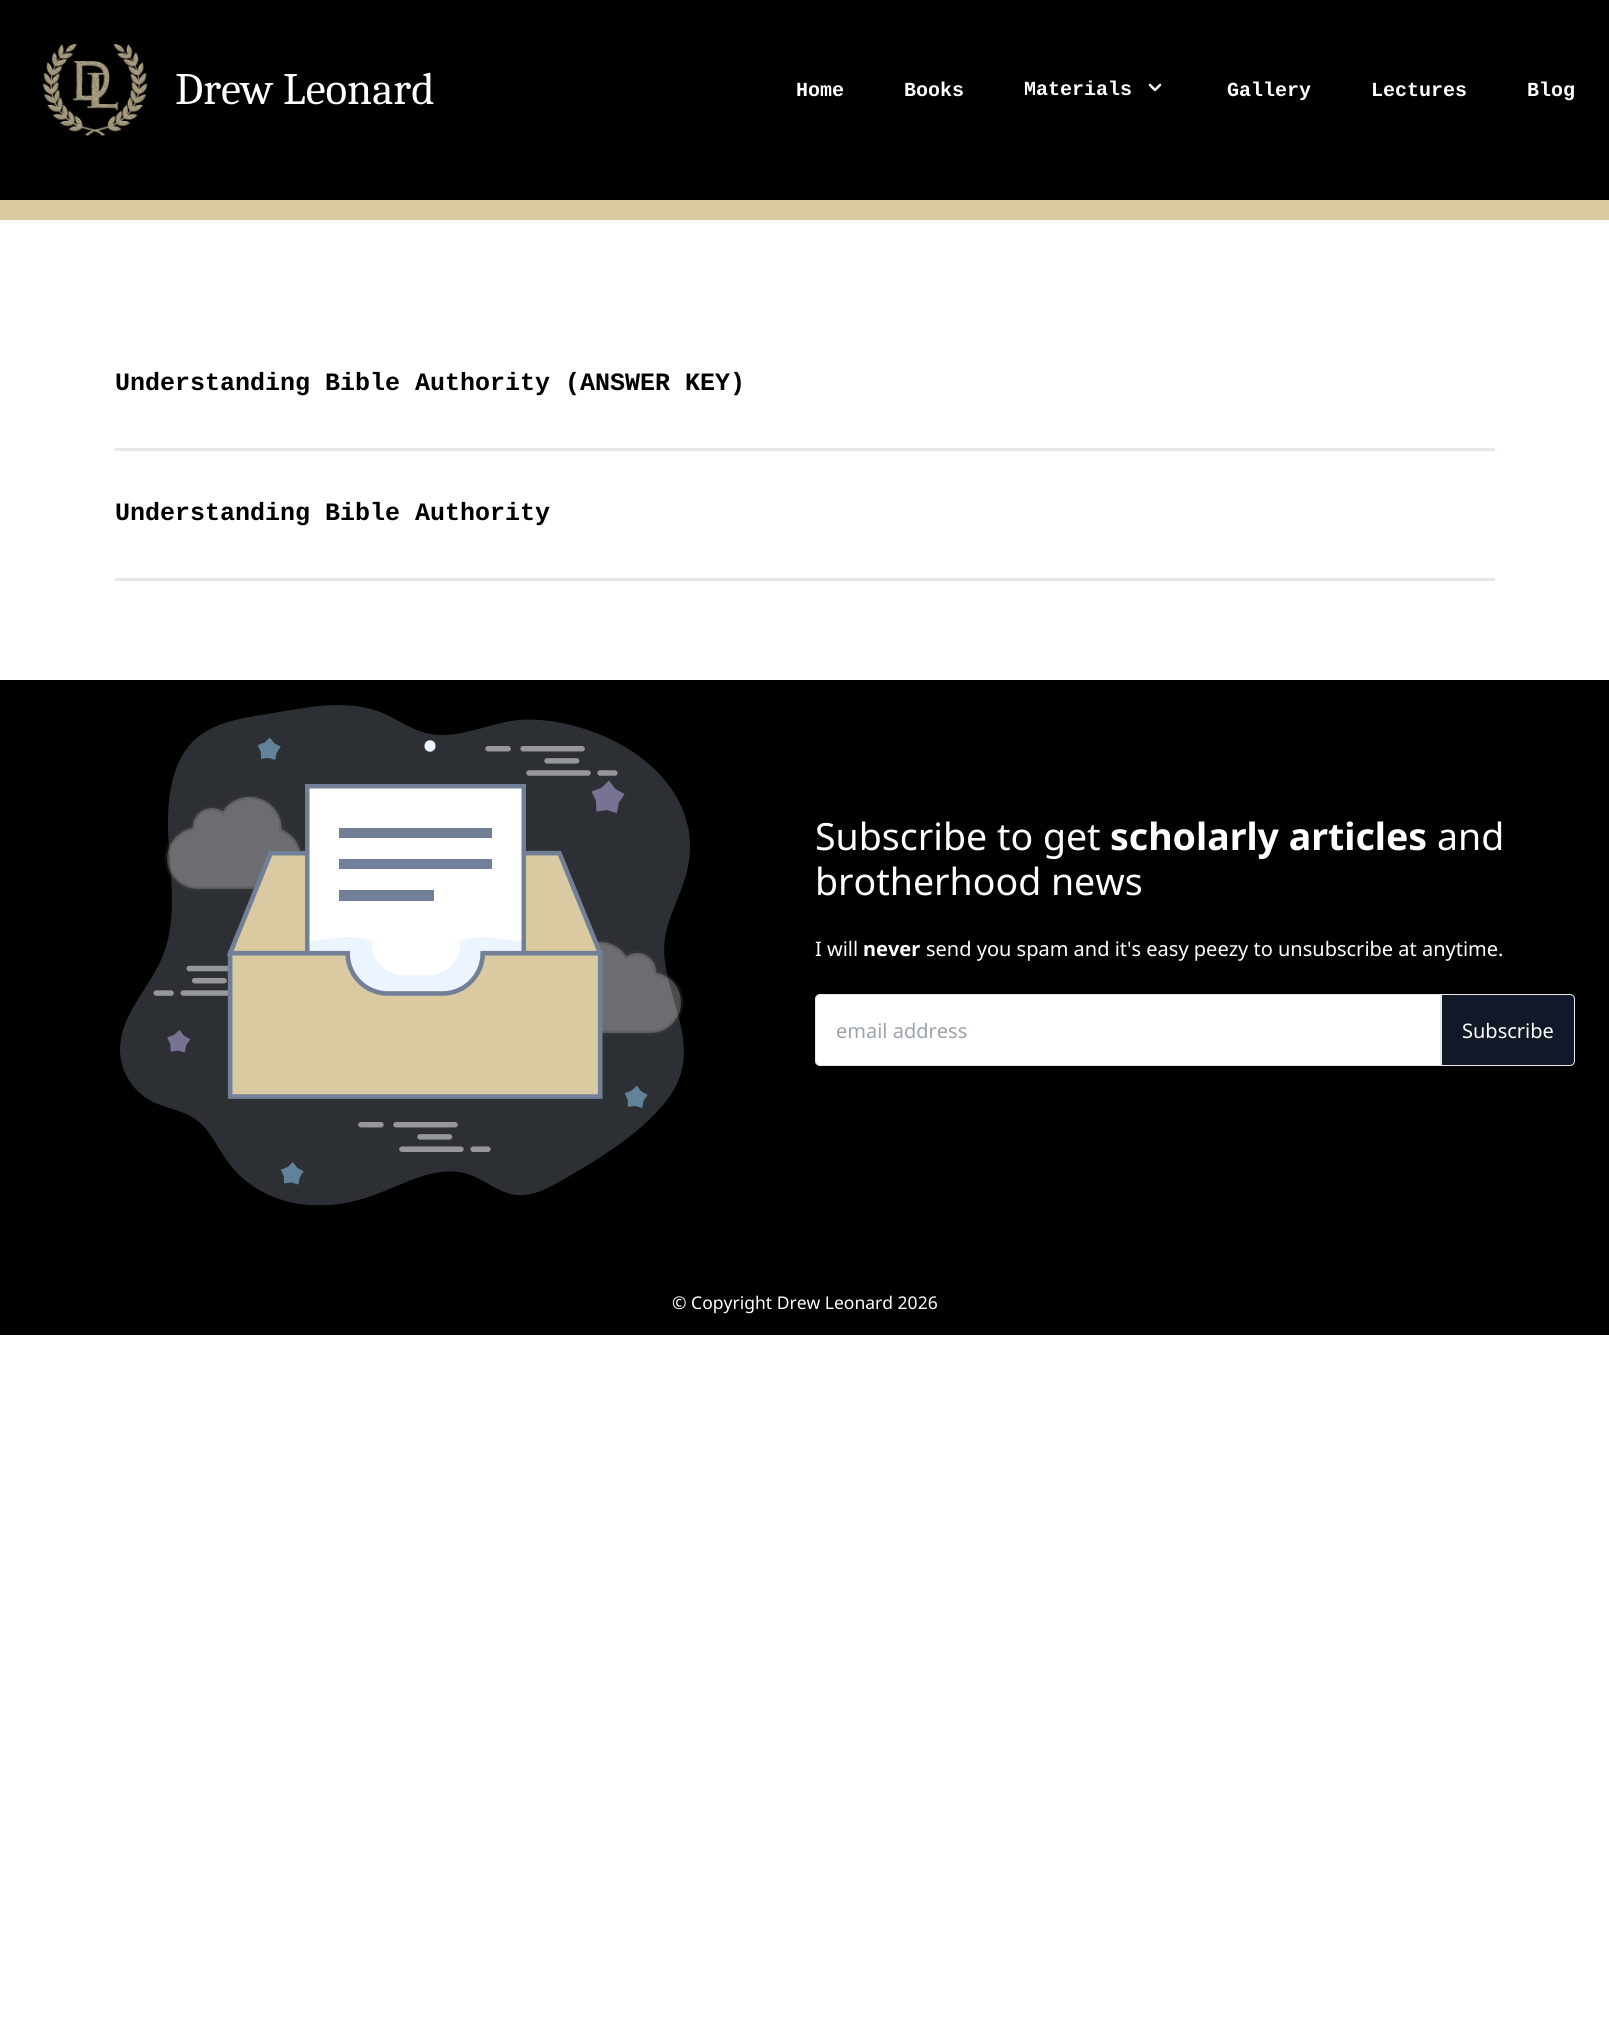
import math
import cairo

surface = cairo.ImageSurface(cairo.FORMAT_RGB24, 1609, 2017)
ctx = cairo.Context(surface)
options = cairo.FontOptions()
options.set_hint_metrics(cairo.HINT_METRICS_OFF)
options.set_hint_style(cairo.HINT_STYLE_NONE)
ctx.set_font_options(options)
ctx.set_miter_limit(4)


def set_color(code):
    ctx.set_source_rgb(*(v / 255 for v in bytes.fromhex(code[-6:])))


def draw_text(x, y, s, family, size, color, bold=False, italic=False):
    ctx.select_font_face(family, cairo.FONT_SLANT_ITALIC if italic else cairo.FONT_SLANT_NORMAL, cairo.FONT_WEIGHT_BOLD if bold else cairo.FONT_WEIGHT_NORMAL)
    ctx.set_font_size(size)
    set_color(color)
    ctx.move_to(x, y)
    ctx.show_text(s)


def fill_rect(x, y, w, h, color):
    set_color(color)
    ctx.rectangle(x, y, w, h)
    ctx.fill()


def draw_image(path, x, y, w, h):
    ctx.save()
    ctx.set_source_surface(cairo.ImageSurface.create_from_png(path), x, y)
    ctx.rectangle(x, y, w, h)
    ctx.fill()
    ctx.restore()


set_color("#ffffff")
ctx.paint()
fill_rect(0, 0, 1609, 200, "#000000")
draw_image("assets/img1.png", 42, 44, 106, 92)
draw_text(175, 104, "Drew Leonard", "Caladea", 45, "#ffffff")
draw_text(796, 96, "Home", "Liberation Mono", 20, "#ffffff", bold=True)
draw_text(904, 96, "Books", "Liberation Mono", 20, "#ffffff", bold=True)
draw_text(1024, 95, "Materials", "Liberation Mono", 20, "#ffffff", bold=True)
draw_image("assets/img2.png", 1148, 83, 14, 9)
draw_text(1227, 96, "Gallery", "Liberation Mono", 20, "#ffffff", bold=True)
draw_text(1371, 96, "Lectures", "Liberation Mono", 20, "#ffffff", bold=True)
draw_text(1527, 96, "Blog", "Liberation Mono", 20, "#ffffff", bold=True)
fill_rect(0, 200, 1609, 20, "#dacaa1")
fill_rect(115, 448, 1380, 3, "#e5e7eb")
draw_text(115, 390, "Understanding Bible Authority (ANSWER KEY)", "Liberation Mono", 25, "#000000", bold=True)
fill_rect(115, 578, 1380, 3, "#e5e7eb")
draw_text(115, 520, "Understanding Bible Authority", "Liberation Mono", 25, "#000000", bold=True)
fill_rect(0, 680, 1609, 655, "#000000")
draw_image("assets/img3.png", 120, 705, 570, 500)
draw_text(815, 850, "Subscribe to get", "Noto Sans", 37.5, "#ffffff")
draw_text(1110, 850, "scholarly articles", "Noto Sans", 37.5, "#ffffff", bold=True)
draw_text(1437, 850, "and", "Noto Sans", 37.5, "#ffffff")
draw_text(815, 895, "brotherhood news", "Noto Sans", 37.5, "#ffffff")
draw_text(815, 956, "I will", "Noto Sans", 20, "#ffffff")
draw_text(863, 956, "never", "Noto Sans", 20, "#ffffff", bold=True)
draw_text(926, 956, "send you spam and it's easy peezy to unsubscribe at anytime.", "Noto Sans", 20, "#ffffff")
ctx.new_path()
ctx.move_to(820, 994.5)
ctx.line_to(1440.5, 994.5)
ctx.line_to(1440.5, 1065.5)
ctx.line_to(820, 1065.5)
ctx.curve_to(817.5, 1065.5, 815.5, 1063.5, 815.5, 1061)
ctx.line_to(815.5, 999)
ctx.curve_to(815.5, 996.5, 817.5, 994.5, 820, 994.5)
ctx.close_path()
ctx.fill_preserve()
set_color("#e5e7eb")
ctx.set_line_width(1)
ctx.stroke()
draw_text(836, 1038, "email address", "Noto Sans", 20, "#9ca3af")
set_color("#111827")
ctx.new_path()
ctx.move_to(1441.5, 994.5)
ctx.line_to(1570, 994.5)
ctx.curve_to(1572.5, 994.5, 1574.5, 996.5, 1574.5, 999)
ctx.line_to(1574.5, 1061)
ctx.curve_to(1574.5, 1063.5, 1572.5, 1065.5, 1570, 1065.5)
ctx.line_to(1441.5, 1065.5)
ctx.close_path()
ctx.fill_preserve()
set_color("#e5e7eb")
ctx.stroke()
draw_text(1462, 1038, "Subscribe", "Noto Sans", 20, "#ffffff")
draw_text(672, 1309, "© Copyright Drew Leonard 2026", "Noto Sans", 17.5, "#ffffff")
surface.write_to_png("output.png")
